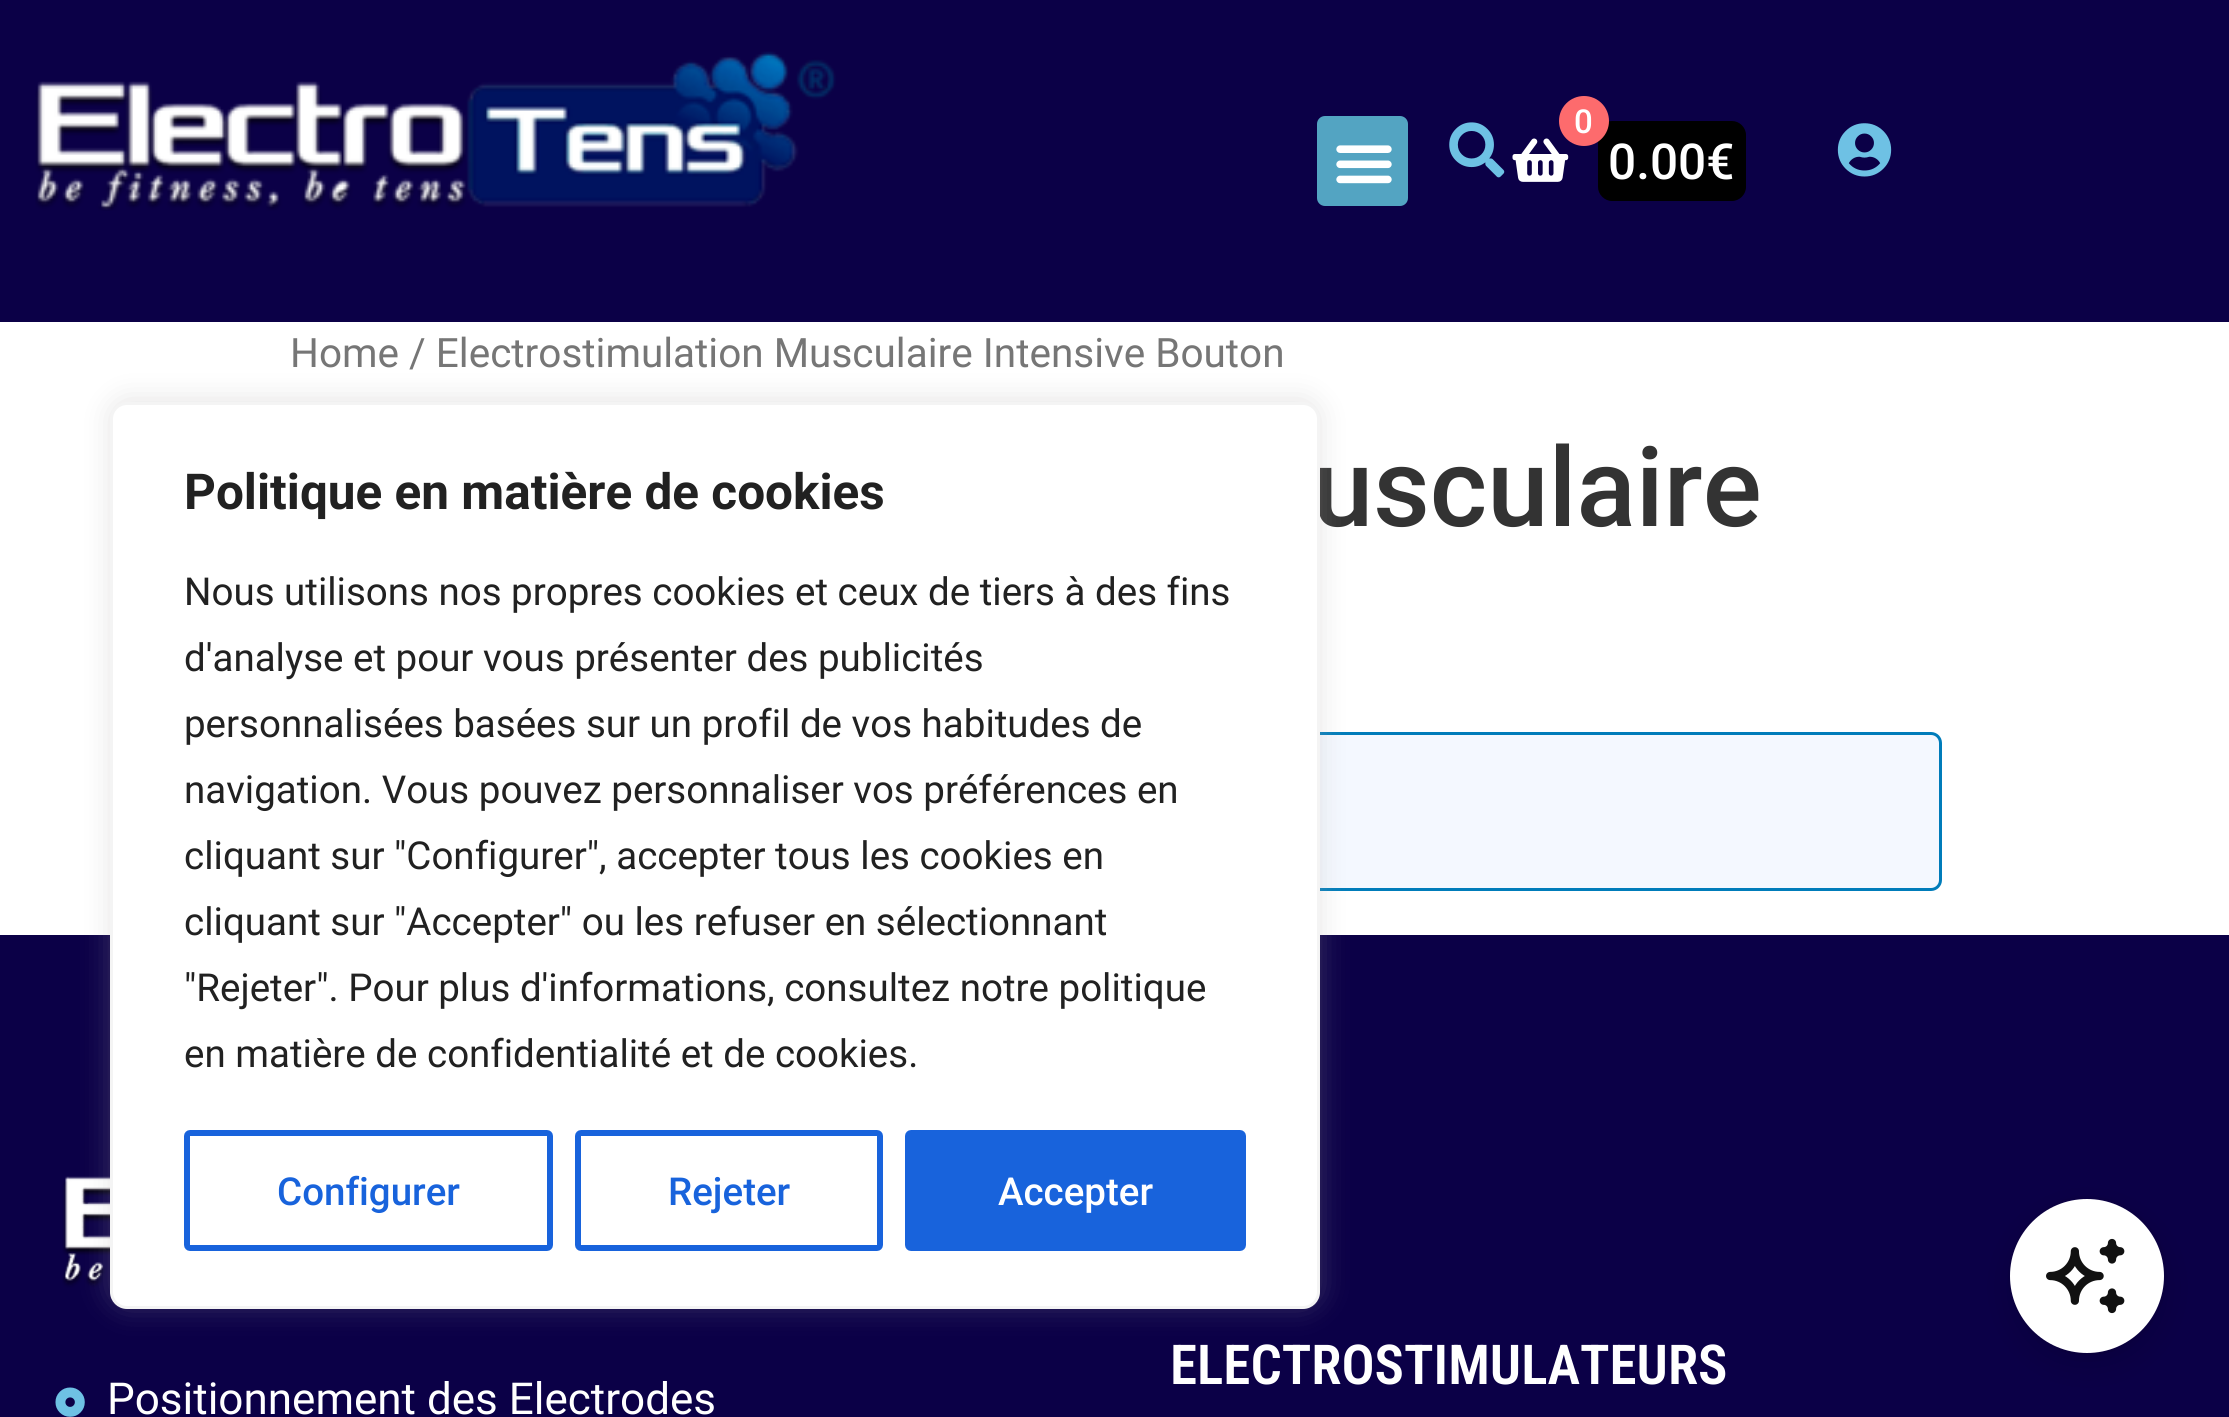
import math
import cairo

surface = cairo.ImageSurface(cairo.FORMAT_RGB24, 2229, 1417)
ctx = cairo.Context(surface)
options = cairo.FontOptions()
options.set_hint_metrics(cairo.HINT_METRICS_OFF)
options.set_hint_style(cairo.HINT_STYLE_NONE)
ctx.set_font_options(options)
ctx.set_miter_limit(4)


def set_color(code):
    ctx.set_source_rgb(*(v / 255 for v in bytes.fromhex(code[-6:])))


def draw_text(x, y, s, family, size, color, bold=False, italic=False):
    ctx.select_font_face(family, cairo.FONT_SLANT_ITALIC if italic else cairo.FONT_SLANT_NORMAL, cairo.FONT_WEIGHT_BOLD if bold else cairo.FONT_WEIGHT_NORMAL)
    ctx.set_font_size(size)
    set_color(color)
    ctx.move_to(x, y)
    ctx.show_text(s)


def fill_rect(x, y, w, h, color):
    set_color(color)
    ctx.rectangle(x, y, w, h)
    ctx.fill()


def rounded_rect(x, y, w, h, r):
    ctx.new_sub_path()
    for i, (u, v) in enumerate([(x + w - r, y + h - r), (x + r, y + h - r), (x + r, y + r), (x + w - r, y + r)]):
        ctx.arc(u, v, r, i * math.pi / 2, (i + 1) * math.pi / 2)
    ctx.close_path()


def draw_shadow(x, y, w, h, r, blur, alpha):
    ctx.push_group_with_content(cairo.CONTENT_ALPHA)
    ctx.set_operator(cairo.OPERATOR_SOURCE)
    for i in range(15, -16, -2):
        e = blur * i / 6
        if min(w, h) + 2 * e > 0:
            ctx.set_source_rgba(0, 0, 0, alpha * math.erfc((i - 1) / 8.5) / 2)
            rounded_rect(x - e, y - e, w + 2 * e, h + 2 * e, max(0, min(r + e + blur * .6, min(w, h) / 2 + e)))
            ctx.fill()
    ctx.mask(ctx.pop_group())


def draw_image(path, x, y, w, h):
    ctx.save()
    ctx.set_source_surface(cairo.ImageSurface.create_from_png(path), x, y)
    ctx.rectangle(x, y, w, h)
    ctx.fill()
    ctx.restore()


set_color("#ffffff")
ctx.paint()
fill_rect(0, 0, 2229, 322, "#0b0047")
draw_image("assets/img1.png", 35, 51, 801, 160)
set_color("#53a4c2")
rounded_rect(1317, 116, 91, 90, 8)
ctx.fill()
draw_image("assets/img2.png", 1336, 145, 56, 39)
draw_image("assets/img3.png", 1449, 122, 56, 56)
draw_image("assets/img4.png", 1512, 138, 57, 44)
set_color("#000000")
ctx.new_path()
ctx.move_to(1612, 121)
ctx.line_to(1705, 121)
ctx.line_to(1705, 201)
ctx.line_to(1612, 201)
ctx.curve_to(1604.5, 201, 1598, 194.5, 1598, 187)
ctx.line_to(1598, 135)
ctx.curve_to(1598, 127.5, 1604.5, 121, 1612, 121)
ctx.close_path()
ctx.fill()
set_color("#fd6b6d")
ctx.arc(1584, 121, 25, 0, 2 * math.pi)
ctx.fill()
draw_text(1574, 133, "0", "Roboto Medium", 33, "#ffffff")
set_color("#000000")
ctx.new_path()
ctx.move_to(1705, 121)
ctx.line_to(1732, 121)
ctx.curve_to(1739.5, 121, 1746, 127.5, 1746, 135)
ctx.line_to(1746, 187)
ctx.curve_to(1746, 194.5, 1739.5, 201, 1732, 201)
ctx.line_to(1705, 201)
ctx.close_path()
ctx.fill()
draw_text(1608, 179, "0.00€", "Roboto Medium", 49.5, "#ffffff")
draw_image("assets/img5.png", 1837, 123, 55, 54)
draw_text(290, 367, "Home / Electrostimulation Musculaire Intensive Bouton", "Roboto", 40.5, "#767676")
draw_text(1312, 526, "usculaire", "Roboto Medium", 110, "#333333")
set_color("#f4f8ff")
rounded_rect(293.5, 733.5, 1647, 156, 9.5)
ctx.fill_preserve()
set_color("#007cba")
ctx.set_line_width(3)
ctx.stroke()
fill_rect(0, 935, 2229, 482, "#0b0047")
draw_image("assets/img6.png", 62, 1176, 48, 112)
set_color("#acabab")
draw_shadow(110, 399, 1210, 907, 17, 14, 0.3)
set_color("#ffffff")
rounded_rect(111.5, 403.5, 1207, 904, 15.5)
ctx.fill_preserve()
set_color("#f4f4f4")
ctx.stroke()
draw_text(184, 509, "Politique en matière de cookies", "Roboto", 49.5, "#212121", bold=True)
draw_text(184, 605, "Nous utilisons nos propres cookies et ceux de tiers à des fins", "Roboto", 38.5, "#212121")
draw_text(184, 671, "d'analyse et pour vous présenter des publicités", "Roboto", 38.5, "#212121")
draw_text(184, 737, "personnalisées basées sur un profil de vos habitudes de", "Roboto", 38.5, "#212121")
draw_text(184, 803, "navigation. Vous pouvez personnaliser vos préférences en", "Roboto", 38.5, "#212121")
draw_text(184, 869, "cliquant sur \"Configurer\", accepter tous les cookies en", "Roboto", 38.5, "#212121")
draw_text(184, 935, "cliquant sur \"Accepter\" ou les refuser en sélectionnant", "Roboto", 38.5, "#212121")
draw_text(184, 1001, "\"Rejeter\". Pour plus d'informations, consultez notre politique", "Roboto", 38.5, "#212121")
draw_text(184, 1067, "en matière de confidentialité et de cookies.", "Roboto", 38.5, "#212121")
rounded_rect(187, 1133, 363, 115, 3)
set_color("#1863dc")
ctx.set_line_width(6)
ctx.stroke()
draw_text(277, 1205, "Configurer", "Roboto Medium", 38.5, "#1863dc")
rounded_rect(578, 1133, 302, 115, 3)
ctx.stroke()
draw_text(668, 1205, "Rejeter", "Roboto Medium", 38.5, "#1863dc")
rounded_rect(908, 1133, 335, 115, 3)
ctx.fill_preserve()
ctx.stroke()
draw_text(998, 1205, "Accepter", "Roboto Medium", 38.5, "#ffffff")
draw_text(1170, 1384, "ELECTROSTIMULATEURS", "Roboto Condensed SemiBold", 55, "#ffffff")
draw_image("assets/img7.png", 55, 1387, 30, 30)
draw_text(107, 1414, "Positionnement des Electrodes", "Roboto", 44, "#ffffff")
rounded_rect(2009.5, 1197.5, 156, 157, 78)
set_color("#0b0044")
ctx.set_line_width(3)
ctx.stroke()
set_color("#000000")
draw_shadow(2016, 1216, 143, 143, 71.5, 19, 0.16)
set_color("#ffffff")
ctx.arc(2087, 1276, 77, 0, 2 * math.pi)
ctx.fill()
draw_image("assets/img8.png", 2046, 1238, 79, 76)
surface.write_to_png("output.png")
